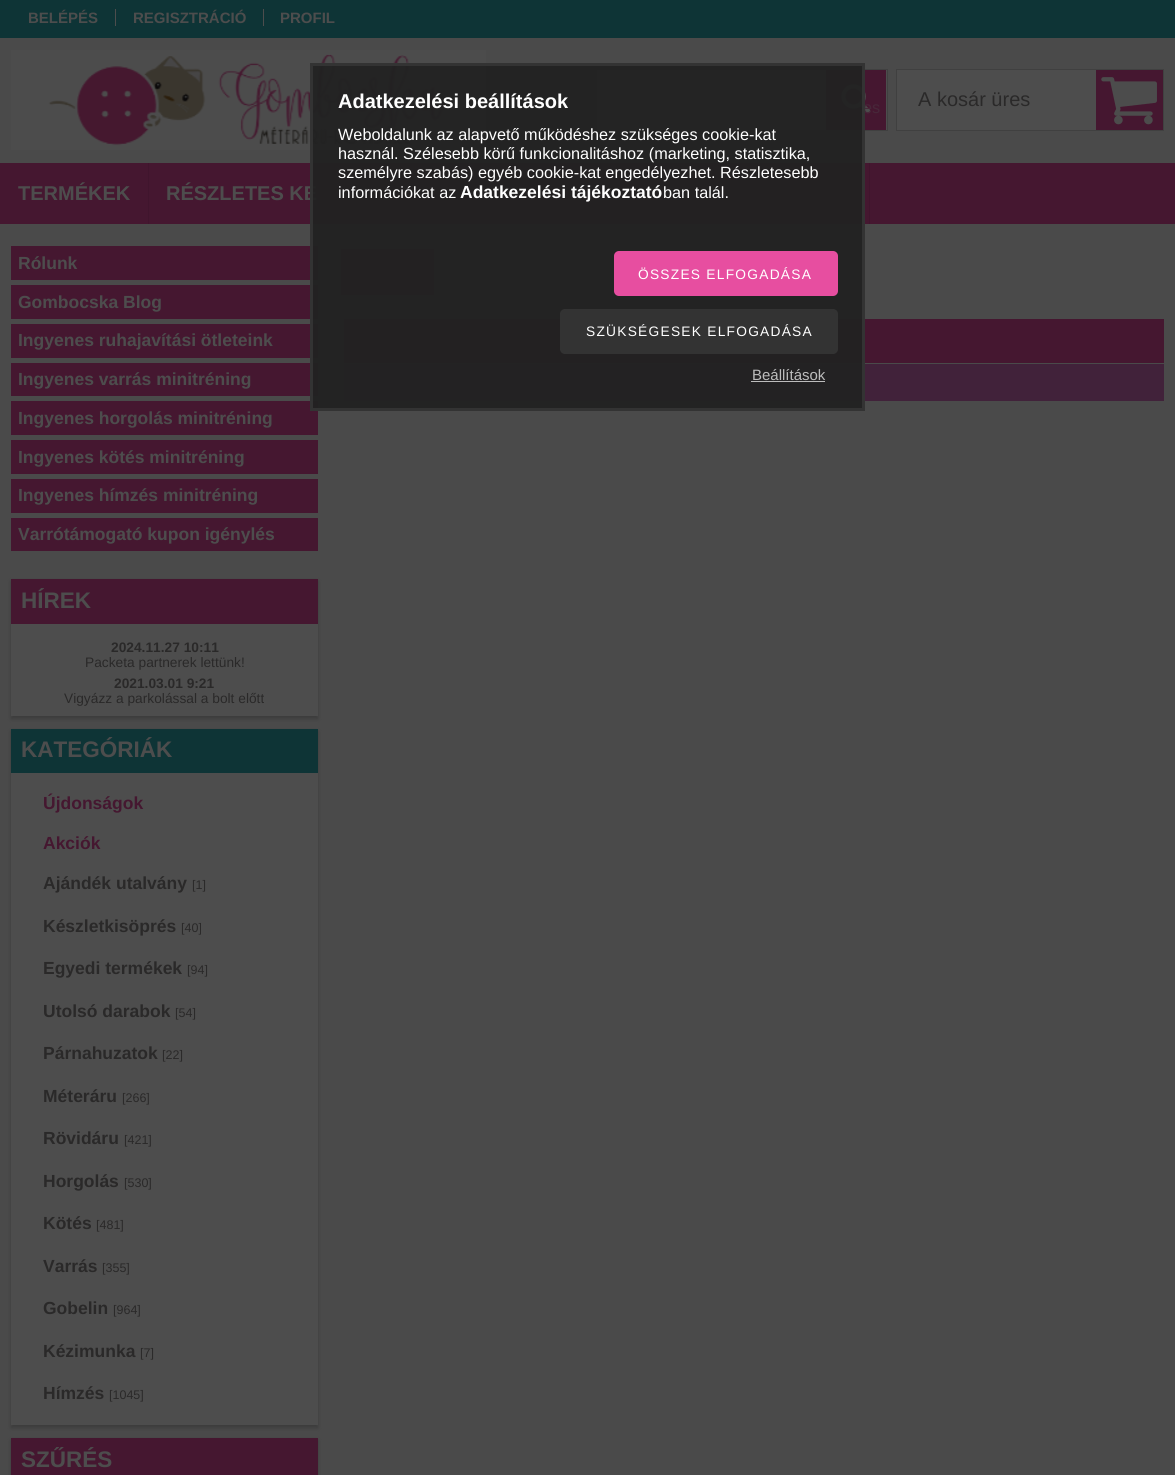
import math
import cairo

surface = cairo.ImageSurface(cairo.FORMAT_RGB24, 1175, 1475)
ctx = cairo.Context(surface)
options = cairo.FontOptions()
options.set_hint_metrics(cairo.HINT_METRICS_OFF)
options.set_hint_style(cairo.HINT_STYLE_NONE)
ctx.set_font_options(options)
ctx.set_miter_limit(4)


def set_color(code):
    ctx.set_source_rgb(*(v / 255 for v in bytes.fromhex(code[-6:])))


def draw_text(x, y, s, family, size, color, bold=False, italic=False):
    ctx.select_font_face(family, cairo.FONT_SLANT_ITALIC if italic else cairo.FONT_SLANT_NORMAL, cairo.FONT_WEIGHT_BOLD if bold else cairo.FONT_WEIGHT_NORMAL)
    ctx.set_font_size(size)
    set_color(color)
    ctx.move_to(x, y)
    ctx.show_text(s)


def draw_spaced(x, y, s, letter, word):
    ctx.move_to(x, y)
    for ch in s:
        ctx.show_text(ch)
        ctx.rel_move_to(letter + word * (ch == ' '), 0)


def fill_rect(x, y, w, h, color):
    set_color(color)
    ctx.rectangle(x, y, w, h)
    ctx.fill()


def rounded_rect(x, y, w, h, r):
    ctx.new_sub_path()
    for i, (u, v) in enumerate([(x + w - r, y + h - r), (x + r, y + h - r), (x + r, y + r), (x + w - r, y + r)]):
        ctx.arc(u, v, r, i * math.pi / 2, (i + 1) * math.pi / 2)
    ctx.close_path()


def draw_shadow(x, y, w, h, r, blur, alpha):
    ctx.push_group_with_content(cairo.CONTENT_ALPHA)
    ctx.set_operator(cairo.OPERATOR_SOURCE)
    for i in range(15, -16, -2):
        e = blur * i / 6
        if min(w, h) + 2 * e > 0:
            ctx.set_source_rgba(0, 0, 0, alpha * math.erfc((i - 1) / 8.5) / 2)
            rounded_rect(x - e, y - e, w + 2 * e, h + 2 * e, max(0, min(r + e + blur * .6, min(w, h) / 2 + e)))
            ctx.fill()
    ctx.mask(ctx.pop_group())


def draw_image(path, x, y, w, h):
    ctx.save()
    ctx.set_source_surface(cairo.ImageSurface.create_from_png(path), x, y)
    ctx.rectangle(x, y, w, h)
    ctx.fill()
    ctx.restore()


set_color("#4a4a4a")
ctx.paint()
fill_rect(0, 0, 1175, 38, "#0e3436")
draw_text(28, 23, "BELÉPÉS", "Liberation Sans", 15, "#4d4d4d", bold=True)
fill_rect(115, 9, 1, 17, "#4d4d4d")
draw_text(133, 23, "REGISZTRÁCIÓ", "Liberation Sans", 15, "#4d4d4d", bold=True)
fill_rect(263, 9, 1, 17, "#4d4d4d")
draw_text(280, 23, "PROFIL", "Liberation Sans", 15, "#4d4d4d", bold=True)
draw_image("assets/img1.png", 11, 50, 475, 100)
fill_rect(897, 70, 199, 60, "#4d4d4d")
ctx.rectangle(896.5, 69.5, 267, 61)
set_color("#404040")
ctx.set_line_width(1)
ctx.stroke()
draw_text(918, 106, "A kosár üres", "Liberation Sans", 20, "#2a2929")
fill_rect(1096, 70, 67, 60, "#451730")
draw_image("assets/img2.png", 1101, 77, 56, 48)
set_color("#4d4d4d")
ctx.rectangle(596.5, 69.5, 291, 61)
ctx.fill_preserve()
set_color("#404040")
ctx.stroke()
fill_rect(826, 70, 60, 60, "#451730")
draw_image("assets/img3.png", 841, 84, 30, 30)
draw_text(863, 113, "es", "Liberation Sans", 16.25, "#472739")
fill_rect(0, 163, 1175, 61, "#451730")
ctx.set_source_rgba(0, 0, 0, 0.07)
ctx.rectangle(148, 163, 1, 61)
ctx.fill()
draw_text(18, 200, "TERMÉKEK", "Liberation Sans", 20, "#4d4d4d", bold=True)
ctx.set_source_rgba(0, 0, 0, 0.07)
ctx.rectangle(403, 163, 1, 61)
ctx.fill()
draw_text(166, 200, "RÉSZLETES KE", "Liberation Sans", 20, "#4d4d4d", bold=True)
ctx.set_source_rgba(0, 0, 0, 0.07)
ctx.rectangle(583, 163, 1, 61)
ctx.fill()
ctx.rectangle(869, 163, 1, 61)
ctx.fill()
fill_rect(11, 246, 307, 34, "#451730")
draw_text(18, 269, "Rólunk", "Liberation Sans", 17.5, "#4d4d4d", bold=True)
fill_rect(11, 285, 307, 34, "#451730")
draw_text(18, 308, "Gombocska Blog", "Liberation Sans", 17.5, "#4d4d4d", bold=True)
fill_rect(11, 324, 307, 34, "#451730")
draw_text(18, 346, "Ingyenes ruhajavítási ötleteink", "Liberation Sans", 17.5, "#4d4d4d", bold=True)
fill_rect(11, 363, 307, 33, "#451730")
draw_text(18, 385, "Ingyenes varrás minitréning", "Liberation Sans", 17.5, "#4d4d4d", bold=True)
fill_rect(11, 401, 307, 34, "#451730")
draw_text(18, 424, "Ingyenes horgolás minitréning", "Liberation Sans", 17.5, "#4d4d4d", bold=True)
fill_rect(11, 440, 307, 34, "#451730")
draw_text(18, 463, "Ingyenes kötés minitréning", "Liberation Sans", 17.5, "#4d4d4d", bold=True)
fill_rect(11, 479, 307, 34, "#451730")
draw_text(18, 501, "Ingyenes hímzés minitréning", "Liberation Sans", 17.5, "#4d4d4d", bold=True)
fill_rect(11, 518, 307, 33, "#451730")
draw_text(18, 540, "Varrótámogató kupon igénylés", "Liberation Sans", 17.5, "#4d4d4d", bold=True)
set_color("#000000")
draw_shadow(11, 581, 307, 138, 0, 2, 0.2)
fill_rect(11, 579, 307, 45, "#451730")
draw_text(21, 608, "HÍREK", "Liberation Sans", 22.5, "#4d4d4d", bold=True)
fill_rect(11, 624, 307, 92, "#4d4d4d")
draw_text(111, 652, "2024.11.27 10:11", "Liberation Sans", 13.75, "#2a2929", bold=True)
draw_text(85, 667, "Packeta partnerek lettünk!", "Liberation Sans", 13.75, "#2a2929")
draw_text(114, 688, "2021.03.01 9:21", "Liberation Sans", 13.75, "#2a2929", bold=True)
draw_text(64, 703, "Vigyázz a parkolással a bolt előtt", "Liberation Sans", 13.75, "#2a2929")
set_color("#000000")
draw_shadow(11, 731, 307, 697, 0, 2, 0.2)
fill_rect(11, 729, 307, 44, "#0e3436")
draw_text(21, 757, "KATEGÓRIÁK", "Liberation Sans", 22.5, "#4d4d4d", bold=True)
fill_rect(11, 773, 307, 652, "#4d4d4d")
draw_text(43, 809, "Újdonságok", "Liberation Sans", 17.5, "#451730", bold=True)
draw_text(43, 849, "Akciók", "Liberation Sans", 17.5, "#451730", bold=True)
draw_text(43, 889, "Ajándék utalvány", "Liberation Sans", 17.5, "#2a2929", bold=True)
draw_text(192, 889, "[1]", "Liberation Sans", 12.5, "#2a2929")
draw_text(43, 932, "Készletkisöprés", "Liberation Sans", 17.5, "#2a2929", bold=True)
draw_text(181, 932, "[40]", "Liberation Sans", 12.5, "#2a2929")
draw_text(43, 974, "Egyedi termékek", "Liberation Sans", 17.5, "#2a2929", bold=True)
draw_text(187, 974, "[94]", "Liberation Sans", 12.5, "#2a2929")
draw_text(43, 1017, "Utolsó darabok", "Liberation Sans", 17.5, "#2a2929", bold=True)
draw_text(175, 1017, "[54]", "Liberation Sans", 12.5, "#2a2929")
draw_text(43, 1059, "Párnahuzatok", "Liberation Sans", 17.5, "#2a2929", bold=True)
draw_text(162, 1059, "[22]", "Liberation Sans", 12.5, "#2a2929")
draw_text(43, 1102, "Méteráru", "Liberation Sans", 17.5, "#2a2929", bold=True)
draw_text(122, 1102, "[266]", "Liberation Sans", 12.5, "#2a2929")
draw_text(43, 1144, "Rövidáru", "Liberation Sans", 17.5, "#2a2929", bold=True)
draw_text(124, 1144, "[421]", "Liberation Sans", 12.5, "#2a2929")
draw_text(43, 1187, "Horgolás", "Liberation Sans", 17.5, "#2a2929", bold=True)
draw_text(124, 1187, "[530]", "Liberation Sans", 12.5, "#2a2929")
draw_text(43, 1229, "Kötés", "Liberation Sans", 17.5, "#2a2929", bold=True)
draw_text(96, 1229, "[481]", "Liberation Sans", 12.5, "#2a2929")
draw_text(43, 1272, "Varrás", "Liberation Sans", 17.5, "#2a2929", bold=True)
draw_text(102, 1272, "[355]", "Liberation Sans", 12.5, "#2a2929")
draw_text(43, 1314, "Gobelin", "Liberation Sans", 17.5, "#2a2929", bold=True)
draw_text(113, 1314, "[964]", "Liberation Sans", 12.5, "#2a2929")
draw_text(43, 1357, "Kézimunka", "Liberation Sans", 17.5, "#2a2929", bold=True)
draw_text(140, 1357, "[7]", "Liberation Sans", 12.5, "#2a2929")
draw_text(43, 1399, "Hímzés", "Liberation Sans", 17.5, "#2a2929", bold=True)
draw_text(109, 1399, "[1045]", "Liberation Sans", 12.5, "#2a2929")
set_color("#000000")
draw_shadow(11, 1440, 307, 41, 0, 2, 0.2)
fill_rect(11, 1438, 307, 37, "#451730")
draw_text(21, 1467, "SZŰRÉS", "Liberation Sans", 22.5, "#4d4d4d", bold=True)
fill_rect(341, 249, 93, 46, "#451730")
fill_rect(344, 319, 820, 44, "#451730")
fill_rect(344, 364, 820, 37, "#41223a")
ctx.set_source_rgba(0.133, 0.133, 0.133, 0.95)
ctx.rectangle(311.5, 64.5, 552, 345)
ctx.fill_preserve()
set_color("#333333")
ctx.set_line_width(3)
ctx.stroke()
draw_text(338, 108, "Adatkezelési beállítások", "Liberation Sans", 20, "#ffffff", bold=True)
draw_text(338, 140, "Weboldalunk az alapvető működéshez szükséges cookie-kat", "Liberation Sans", 16.25, "#ffffff")
draw_text(338, 159, "használ. Szélesebb körű funkcionalitáshoz (marketing, statisztika,", "Liberation Sans", 16.25, "#ffffff")
draw_text(338, 178, "személyre szabás) egyéb cookie-kat engedélyezhet. Részletesebb", "Liberation Sans", 16.25, "#ffffff")
draw_text(338, 198, "információkat az", "Liberation Sans", 16.25, "#ffffff")
draw_text(460, 198, "Adatkezelési tájékoztató", "Liberation Sans", 17.5, "#ffffff", bold=True)
draw_text(663, 198, "ban talál.", "Liberation Sans", 16.25, "#ffffff")
set_color("#e74ea0")
rounded_rect(614, 251, 224, 45, 5)
ctx.fill()
ctx.set_font_size(13.75)
set_color("#ffffff")
draw_spaced(638, 279, "ÖSSZES ELFOGADÁSA", 1.25, 0)
set_color("#333333")
rounded_rect(560, 309, 278, 45, 5)
ctx.fill()
set_color("#ffffff")
draw_spaced(586, 336, "SZÜKSÉGESEK ELFOGADÁSA", 1.25, 0)
draw_text(752, 380, "Beállítások", "Liberation Sans", 15, "#bdbdbd")
fill_rect(751, 381, 74, 1, "#bdbdbd")
surface.write_to_png("output.png")
